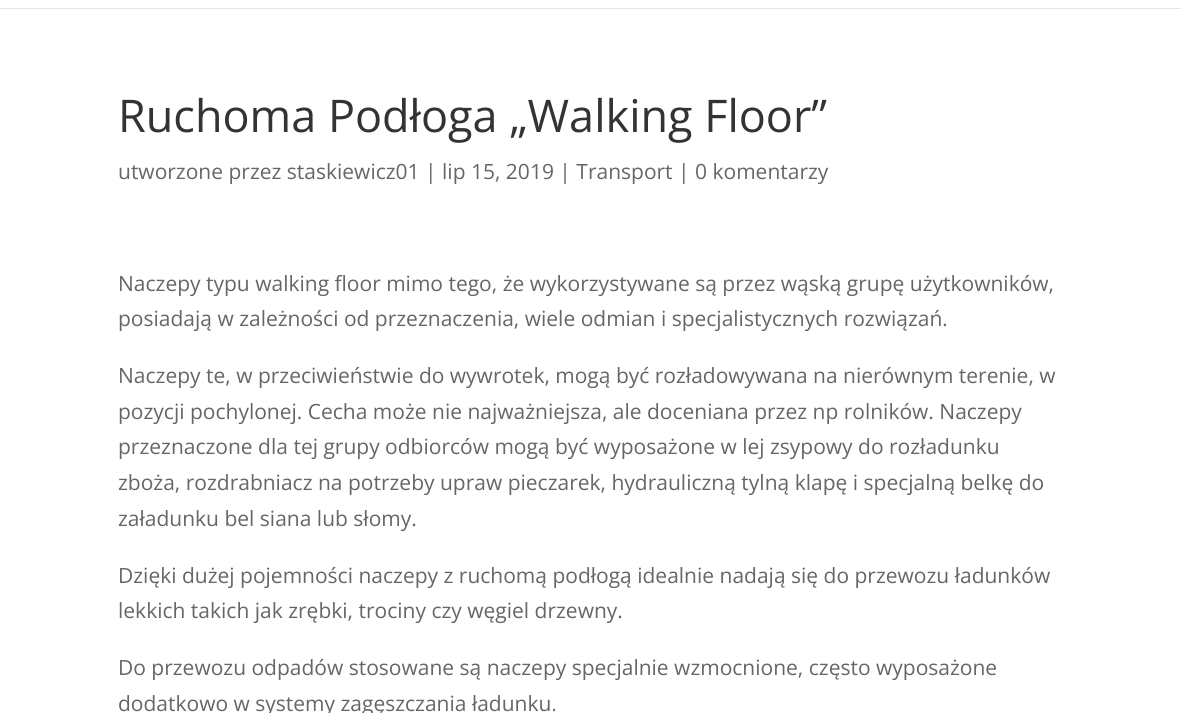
import math
import cairo

surface = cairo.ImageSurface(cairo.FORMAT_RGB24, 1181, 713)
ctx = cairo.Context(surface)
options = cairo.FontOptions()
options.set_hint_metrics(cairo.HINT_METRICS_OFF)
options.set_hint_style(cairo.HINT_STYLE_NONE)
ctx.set_font_options(options)
ctx.set_miter_limit(4)


def set_color(code):
    ctx.set_source_rgb(*(v / 255 for v in bytes.fromhex(code[-6:])))


def draw_text(x, y, s, family, size, color, bold=False, italic=False):
    ctx.select_font_face(family, cairo.FONT_SLANT_ITALIC if italic else cairo.FONT_SLANT_NORMAL, cairo.FONT_WEIGHT_BOLD if bold else cairo.FONT_WEIGHT_NORMAL)
    ctx.set_font_size(size)
    set_color(color)
    ctx.move_to(x, y)
    ctx.show_text(s)


def fill_rect(x, y, w, h, color):
    set_color(color)
    ctx.rectangle(x, y, w, h)
    ctx.fill()


set_color("#ffffff")
ctx.paint()
fill_rect(0, 8, 1181, 1, "#e6e6e6")
draw_text(118, 132, "Ruchoma Podłoga „Walking Floor”", "Open Sans", 45, "#333333")
draw_text(118, 179, "utworzone przez staskiewicz01 | lip 15, 2019 | Transport | 0 komentarzy", "Open Sans", 21, "#666666")
draw_text(118, 291, "Naczepy typu walking floor mimo tego, że wykorzystywane są przez wąską grupę użytkowników,", "Open Sans", 21, "#666666")
draw_text(118, 326, "posiadają w zależności od przeznaczenia, wiele odmian i specjalistycznych rozwiązań.", "Open Sans", 21, "#666666")
draw_text(118, 383, "Naczepy te, w przeciwieństwie do wywrotek, mogą być rozładowywana na nierównym terenie, w", "Open Sans", 21, "#666666")
draw_text(118, 419, "pozycji pochylonej. Cecha może nie najważniejsza, ale doceniana przez np rolników. Naczepy", "Open Sans", 21, "#666666")
draw_text(118, 454, "przeznaczone dla tej grupy odbiorców mogą być wyposażone w lej zsypowy do rozładunku", "Open Sans", 21, "#666666")
draw_text(118, 490, "zboża, rozdrabniacz na potrzeby upraw pieczarek, hydrauliczną tylną klapę i specjalną belkę do", "Open Sans", 21, "#666666")
draw_text(118, 526, "załadunku bel siana lub słomy.", "Open Sans", 21, "#666666")
draw_text(118, 583, "Dzięki dużej pojemności naczepy z ruchomą podłogą idealnie nadają się do przewozu ładunków", "Open Sans", 21, "#666666")
draw_text(118, 618, "lekkich takich jak zrębki, trociny czy węgiel drzewny.", "Open Sans", 21, "#666666")
draw_text(118, 675, "Do przewozu odpadów stosowane są naczepy specjalnie wzmocnione, często wyposażone", "Open Sans", 21, "#666666")
draw_text(118, 711, "dodatkowo w systemy zagęszczania ładunku.", "Open Sans", 21, "#666666")
surface.write_to_png("output.png")
